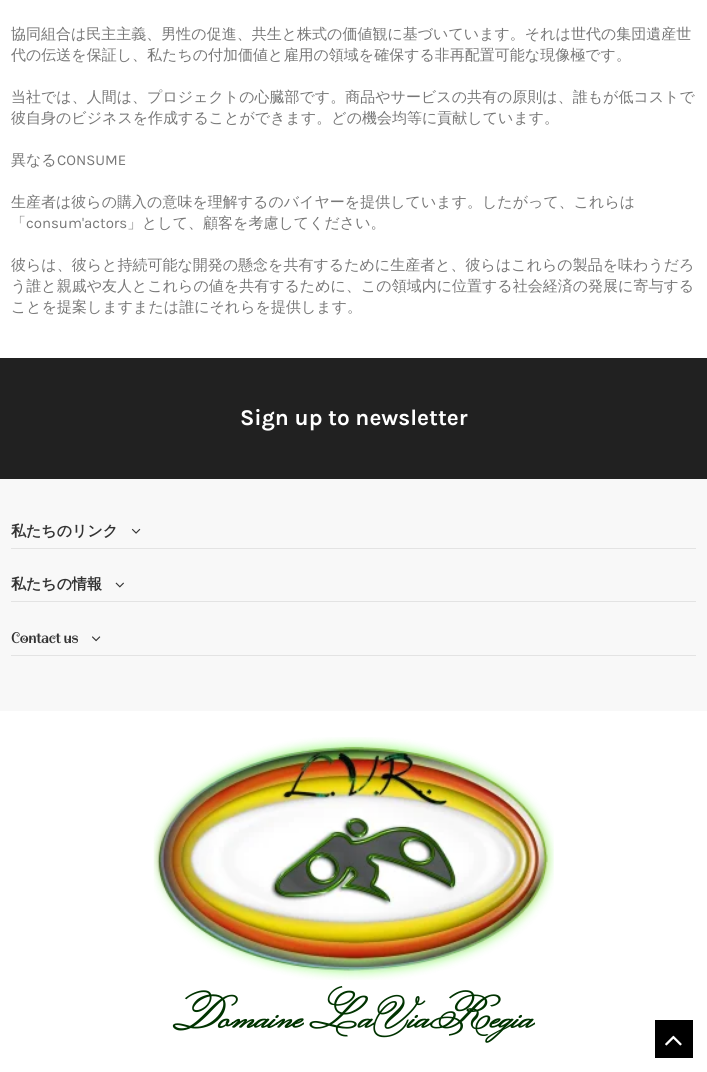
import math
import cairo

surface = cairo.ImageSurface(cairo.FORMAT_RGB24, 707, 1072)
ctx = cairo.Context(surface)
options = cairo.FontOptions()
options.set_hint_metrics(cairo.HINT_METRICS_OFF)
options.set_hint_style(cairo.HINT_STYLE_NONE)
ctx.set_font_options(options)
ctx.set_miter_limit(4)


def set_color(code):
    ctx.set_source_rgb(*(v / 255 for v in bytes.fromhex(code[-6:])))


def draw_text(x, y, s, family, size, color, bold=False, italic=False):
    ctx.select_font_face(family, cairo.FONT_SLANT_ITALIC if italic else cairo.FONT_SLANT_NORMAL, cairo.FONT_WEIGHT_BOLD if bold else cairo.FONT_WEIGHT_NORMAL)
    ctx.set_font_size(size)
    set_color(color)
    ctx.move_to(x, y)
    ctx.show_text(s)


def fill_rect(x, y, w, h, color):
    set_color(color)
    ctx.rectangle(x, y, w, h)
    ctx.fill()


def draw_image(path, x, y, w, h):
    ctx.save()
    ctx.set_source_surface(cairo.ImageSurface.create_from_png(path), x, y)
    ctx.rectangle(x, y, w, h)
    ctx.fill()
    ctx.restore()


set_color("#ffffff")
ctx.paint()
draw_text(11, 39, "協同組合は民主主義、男性の促進、共生と株式の価値観に基づいています。それは世代の集団遺産世", "WenQuanYi Zen Hei Medium", 15, "#777777")
draw_text(11, 60, "代の伝送を保証し、私たちの付加価値と雇用の領域を確保する非再配置可能な現像極です。", "WenQuanYi Zen Hei Medium", 15, "#777777")
draw_text(11, 102, "当社では、人間は、プロジェクトの心臓部です。商品やサービスの共有の原則は、誰もが低コストで", "WenQuanYi Zen Hei Medium", 15, "#777777")
draw_text(11, 123, "彼自身のビジネスを作成することができます。どの機会均等に貢献しています。", "WenQuanYi Zen Hei Medium", 15, "#777777")
draw_text(11, 165, "異なる", "WenQuanYi Zen Hei Medium", 15, "#777777")
draw_text(57, 165, "CONSUME", "Karla", 15, "#777777")
draw_text(11, 207, "生産者は彼らの購入の意味を理解するのバイヤーを提供しています。したがって、これらは", "WenQuanYi Zen Hei Medium", 15, "#777777")
draw_text(11, 228, "「", "WenQuanYi Zen Hei Medium", 15, "#777777")
draw_text(26, 228, "consum'actors", "Karla", 15, "#777777")
draw_text(127, 228, "」として、顧客を考慮してください。", "WenQuanYi Zen Hei Medium", 15, "#777777")
draw_text(11, 270, "彼らは、彼らと持続可能な開発の懸念を共有するために生産者と、彼らはこれらの製品を味わうだろ", "WenQuanYi Zen Hei Medium", 15, "#777777")
draw_text(11, 291, "う誰と親戚や友人とこれらの値を共有するために、この領域内に位置する社会経済の発展に寄与する", "WenQuanYi Zen Hei Medium", 15, "#777777")
draw_text(11, 312, "ことを提案しますまたは誰にそれらを提供します。", "WenQuanYi Zen Hei Medium", 15, "#777777")
fill_rect(0, 479, 707, 232, "#f8f8f8")
fill_rect(0, 358, 707, 121, "#212121")
draw_text(240, 425, "Sign up to newsletter", "Karla", 22.5, "#ffffff", bold=True)
fill_rect(11, 548, 685, 1, "#e3e3e3")
draw_text(11, 536, "私たちのリンク", "WenQuanYi Zen Hei", 15, "#333333", bold=True)
draw_image("assets/img1.png", 131, 528, 10, 6)
fill_rect(11, 601, 685, 1, "#e3e3e3")
draw_text(11, 589, "私たちの情報", "WenQuanYi Zen Hei", 15, "#333333", bold=True)
draw_image("assets/img2.png", 115, 582, 9, 6)
fill_rect(11, 655, 685, 1, "#e3e3e3")
draw_text(11, 643, "Contact us", "Spirax", 15, "#333333", bold=True)
draw_image("assets/img3.png", 92, 636, 9, 6)
draw_image("assets/img4.png", 153, 737, 401, 243)
draw_text(173, 1027, "Domaine LaViaRegia", "Monsieur La Doulaise", 40, "#003300", bold=True)
fill_rect(655, 1020, 38, 38, "#000000")
draw_image("assets/img5.png", 665, 1035, 17, 11)
surface.write_to_png("output.png")
